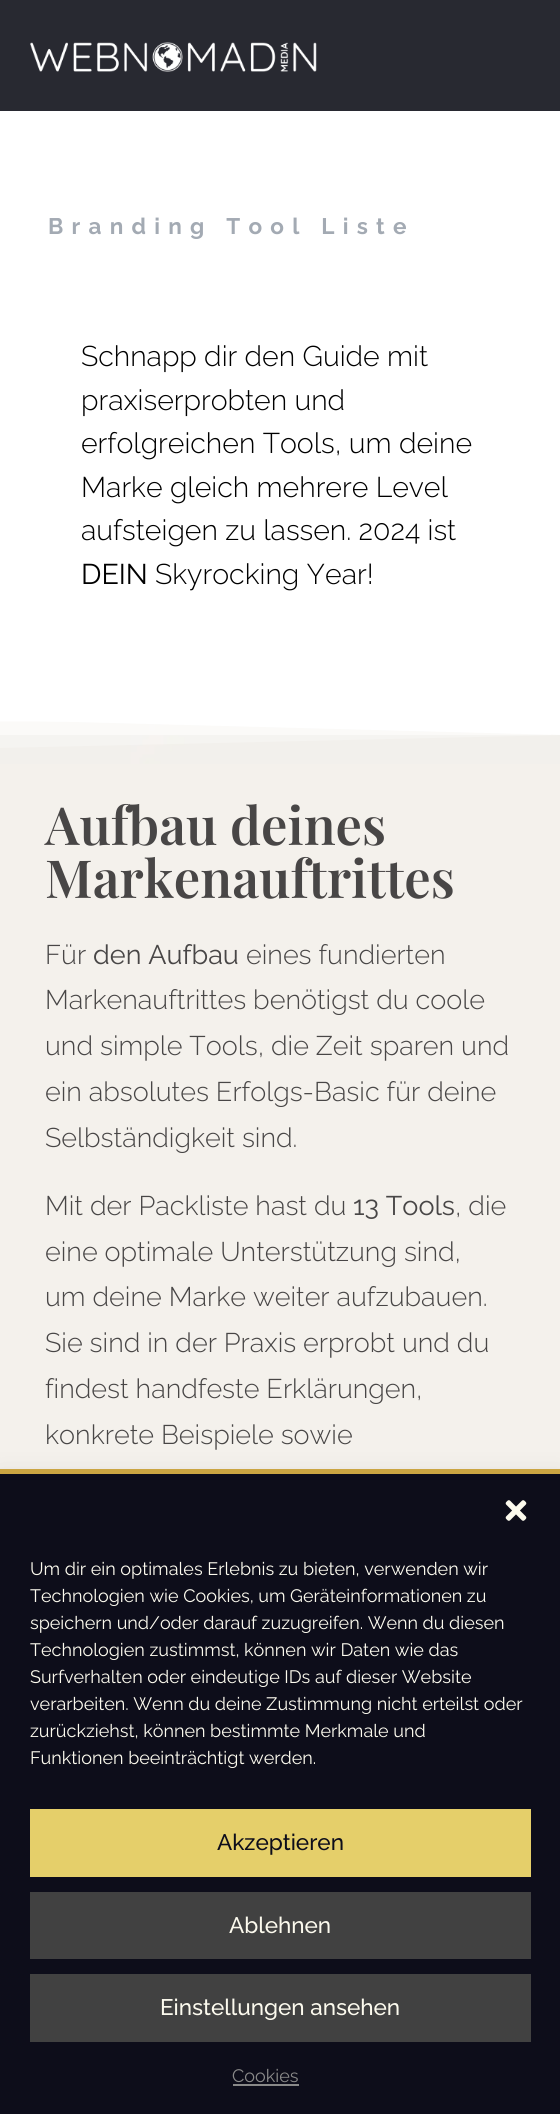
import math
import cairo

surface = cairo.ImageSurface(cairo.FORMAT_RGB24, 560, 2114)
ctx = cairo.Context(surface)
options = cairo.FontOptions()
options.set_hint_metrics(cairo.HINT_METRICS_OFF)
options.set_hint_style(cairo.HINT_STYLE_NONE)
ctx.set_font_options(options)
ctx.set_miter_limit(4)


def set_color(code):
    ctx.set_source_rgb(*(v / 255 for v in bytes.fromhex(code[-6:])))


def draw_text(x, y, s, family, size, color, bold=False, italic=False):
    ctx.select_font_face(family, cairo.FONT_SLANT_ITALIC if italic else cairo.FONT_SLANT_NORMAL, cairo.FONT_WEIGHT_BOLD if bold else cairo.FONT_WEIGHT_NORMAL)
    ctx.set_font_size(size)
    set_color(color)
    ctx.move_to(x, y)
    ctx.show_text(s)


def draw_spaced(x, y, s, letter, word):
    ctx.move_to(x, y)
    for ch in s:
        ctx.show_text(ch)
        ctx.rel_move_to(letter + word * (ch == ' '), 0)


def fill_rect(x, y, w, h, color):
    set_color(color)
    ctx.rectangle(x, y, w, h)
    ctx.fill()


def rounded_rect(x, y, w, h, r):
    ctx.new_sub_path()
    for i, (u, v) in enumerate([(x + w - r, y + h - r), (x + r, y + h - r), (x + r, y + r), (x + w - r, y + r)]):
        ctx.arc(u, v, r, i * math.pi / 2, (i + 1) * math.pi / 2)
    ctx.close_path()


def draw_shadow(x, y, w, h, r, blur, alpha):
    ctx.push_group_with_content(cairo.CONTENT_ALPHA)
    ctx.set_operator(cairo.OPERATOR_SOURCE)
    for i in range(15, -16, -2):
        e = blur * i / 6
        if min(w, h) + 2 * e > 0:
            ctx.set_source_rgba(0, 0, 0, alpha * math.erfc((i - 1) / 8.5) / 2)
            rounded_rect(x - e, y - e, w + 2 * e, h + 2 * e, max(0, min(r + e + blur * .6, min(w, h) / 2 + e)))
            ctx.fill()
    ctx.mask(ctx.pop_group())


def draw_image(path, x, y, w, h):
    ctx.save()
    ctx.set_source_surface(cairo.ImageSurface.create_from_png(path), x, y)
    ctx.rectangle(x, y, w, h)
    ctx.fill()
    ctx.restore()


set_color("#ffffff")
ctx.paint()
fill_rect(0, 0, 560, 111, "#282931")
draw_image("assets/img1.png", 30, 42, 287, 30)
ctx.select_font_face("Raleway", cairo.FONT_SLANT_NORMAL, cairo.FONT_WEIGHT_BOLD)
ctx.set_font_size(22.5)
set_color("#a3aab3")
draw_spaced(48, 234, "Branding Tool Liste", 8.25, 0)
draw_text(81, 366, "Schnapp dir den Guide mit", "Raleway Light", 28.5, "#000000")
draw_text(81, 410, "praxiserprobten und", "Raleway Light", 28.5, "#000000")
draw_text(81, 453, "erfolgreichen Tools, um deine", "Raleway Light", 28.5, "#000000")
draw_text(81, 497, "Marke gleich mehrere Level", "Raleway Light", 28.5, "#000000")
draw_text(81, 540, "aufsteigen zu lassen. 2024 ist", "Raleway Light", 28.5, "#000000")
draw_text(81, 584, "DEIN", "Raleway", 28.5, "#000000")
draw_text(155, 584, "Skyrocking Year!", "Raleway Light", 28.5, "#000000")
fill_rect(0, 764, 560, 705, "#f4f1ec")
draw_image("assets/img2.png", 0, 721, 560, 43)
set_color("#ffffff")
ctx.new_path()
ctx.move_to(-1, 720)
ctx.line_to(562, 720)
ctx.line_to(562, 735)
ctx.close_path()
ctx.fill()
ctx.set_source_rgba(1, 1, 1, 0.5)
ctx.rectangle(0, 721, 551, 14)
ctx.fill()
ctx.set_source_rgba(1, 1, 1, 0.25)
ctx.new_path()
ctx.move_to(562, 720)
ctx.line_to(-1, 720)
ctx.line_to(-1, 748)
ctx.line_to(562, 735)
ctx.close_path()
ctx.fill()
draw_text(45, 845, "Aufbau deines", "Playfair Display SemiBold", 52.5, "#484646")
draw_text(45, 898, "Markenauftrittes", "Playfair Display SemiBold", 52.5, "#484646")
draw_text(45, 964, "Für", "Raleway Light", 27, "#484646")
draw_text(93, 964, "den Aufbau", "Raleway", 27, "#484646")
draw_text(246, 964, "eines fundierten", "Raleway Light", 27, "#484646")
draw_text(45, 1009, "Markenauftrittes benötigst du coole", "Raleway Light", 27, "#484646")
draw_text(45, 1055, "und simple Tools, die Zeit sparen und", "Raleway Light", 27, "#484646")
draw_text(45, 1101, "ein absolutes Erfolgs-Basic für deine", "Raleway Light", 27, "#484646")
draw_text(45, 1147, "Selbständigkeit sind.", "Raleway Light", 27, "#484646")
draw_text(45, 1215, "Mit der Packliste hast du", "Raleway Light", 27, "#484646")
draw_text(353, 1215, "13 Tools", "Raleway", 27, "#484646")
draw_text(455, 1215, ", die", "Raleway Light", 27, "#484646")
draw_text(45, 1261, "eine optimale Unterstützung sind,", "Raleway Light", 27, "#484646")
draw_text(45, 1306, "um deine Marke weiter aufzubauen.", "Raleway Light", 27, "#484646")
draw_text(45, 1352, "Sie sind in der Praxis erprobt und du", "Raleway Light", 27, "#484646")
draw_text(45, 1398, "findest handfeste Erklärungen,", "Raleway Light", 27, "#484646")
draw_text(45, 1444, "konkrete Beispiele sowie", "Raleway Light", 27, "#484646")
set_color("#000000")
draw_shadow(0, 1484, 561, 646, 0, 15, 0.19)
fill_rect(0, 1474, 560, 640, "#0d0d1a")
fill_rect(0, 1469, 560, 5, "#cba542")
draw_image("assets/img3.png", 505, 1500, 22, 21)
draw_text(30, 1575, "Um dir ein optimales Erlebnis zu bieten, verwenden wir", "Raleway", 18, "#fcfaee")
draw_text(30, 1602, "Technologien wie Cookies, um Geräteinformationen zu", "Raleway", 18, "#fcfaee")
draw_text(30, 1629, "speichern und/oder darauf zuzugreifen. Wenn du diesen", "Raleway", 18, "#fcfaee")
draw_text(30, 1656, "Technologien zustimmst, können wir Daten wie das", "Raleway", 18, "#fcfaee")
draw_text(30, 1683, "Surfverhalten oder eindeutige IDs auf dieser Website", "Raleway", 18, "#fcfaee")
draw_text(30, 1710, "verarbeiten. Wenn du deine Zustimmung nicht erteilst oder", "Raleway", 18, "#fcfaee")
draw_text(30, 1737, "zurückziehst, können bestimmte Merkmale und", "Raleway", 18, "#fcfaee")
draw_text(30, 1764, "Funktionen beeinträchtigt werden.", "Raleway", 18, "#fcfaee")
fill_rect(30, 1809, 501, 68, "#e5cf6a")
draw_text(217, 1850, "Akzeptieren", "Raleway Medium", 22.5, "#0d0d1a")
fill_rect(30, 1892, 501, 67, "#414141")
draw_text(229, 1933, "Ablehnen", "Raleway Medium", 22.5, "#fcfaee")
fill_rect(30, 1974, 501, 68, "#414141")
draw_text(160, 2015, "Einstellungen ansehen", "Raleway Medium", 22.5, "#fcfaee")
draw_text(232, 2082, "Cookies", "Raleway", 18, "#898989")
fill_rect(233, 2084, 66, 2, "#898989")
surface.write_to_png("output.png")
